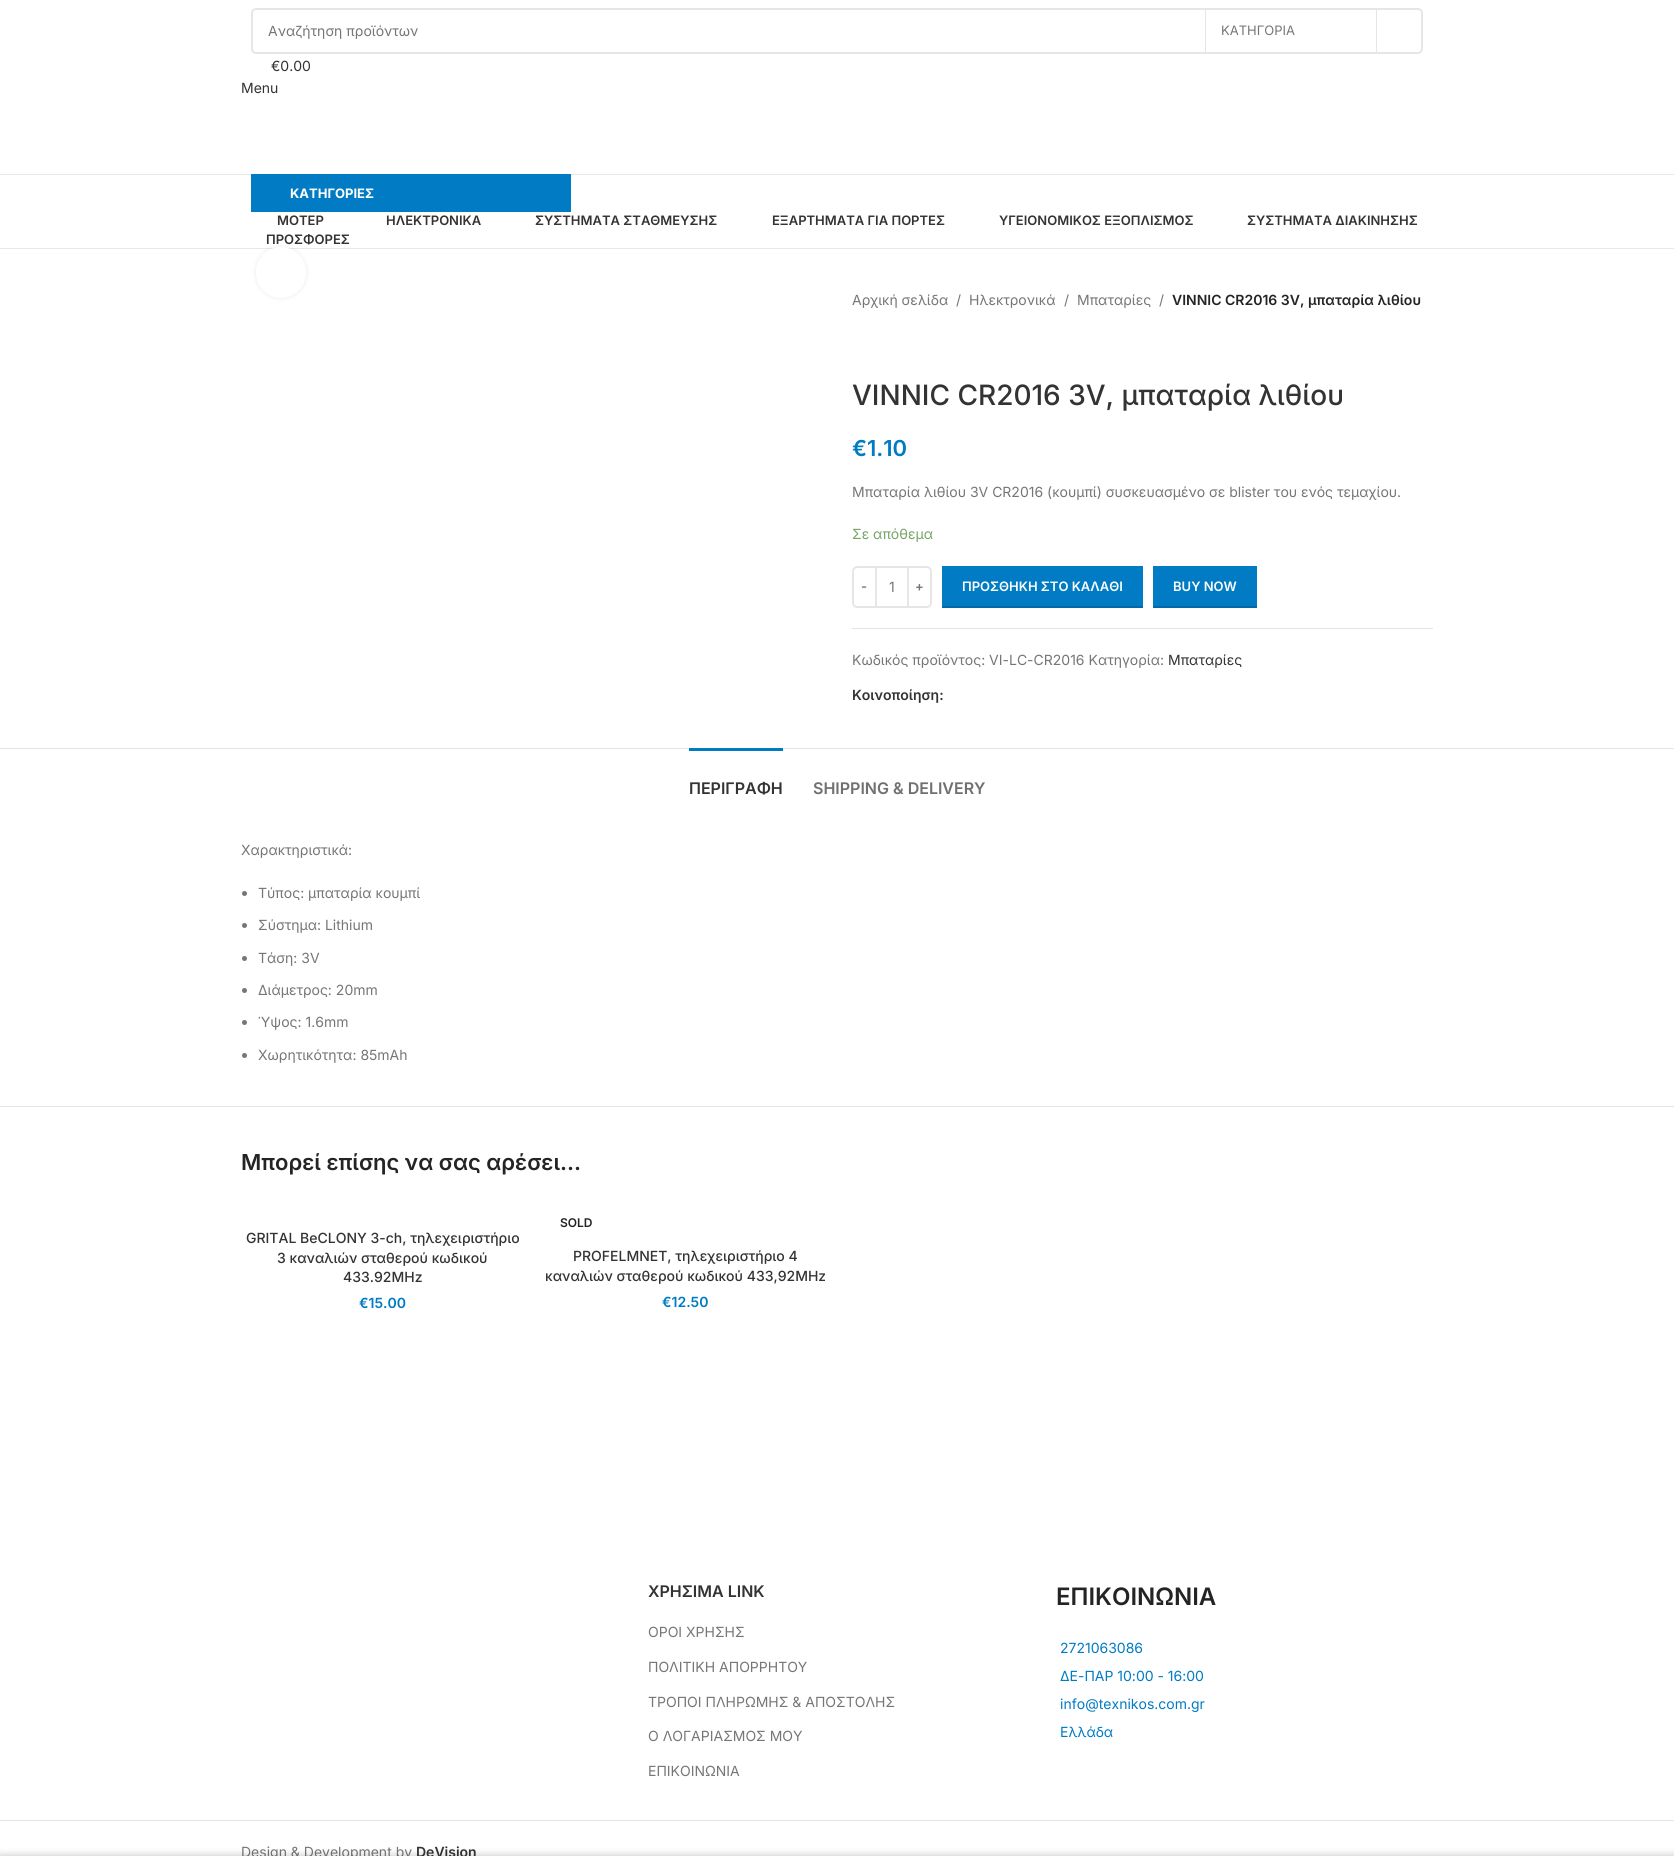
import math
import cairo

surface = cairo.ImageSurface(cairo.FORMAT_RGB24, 1674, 1856)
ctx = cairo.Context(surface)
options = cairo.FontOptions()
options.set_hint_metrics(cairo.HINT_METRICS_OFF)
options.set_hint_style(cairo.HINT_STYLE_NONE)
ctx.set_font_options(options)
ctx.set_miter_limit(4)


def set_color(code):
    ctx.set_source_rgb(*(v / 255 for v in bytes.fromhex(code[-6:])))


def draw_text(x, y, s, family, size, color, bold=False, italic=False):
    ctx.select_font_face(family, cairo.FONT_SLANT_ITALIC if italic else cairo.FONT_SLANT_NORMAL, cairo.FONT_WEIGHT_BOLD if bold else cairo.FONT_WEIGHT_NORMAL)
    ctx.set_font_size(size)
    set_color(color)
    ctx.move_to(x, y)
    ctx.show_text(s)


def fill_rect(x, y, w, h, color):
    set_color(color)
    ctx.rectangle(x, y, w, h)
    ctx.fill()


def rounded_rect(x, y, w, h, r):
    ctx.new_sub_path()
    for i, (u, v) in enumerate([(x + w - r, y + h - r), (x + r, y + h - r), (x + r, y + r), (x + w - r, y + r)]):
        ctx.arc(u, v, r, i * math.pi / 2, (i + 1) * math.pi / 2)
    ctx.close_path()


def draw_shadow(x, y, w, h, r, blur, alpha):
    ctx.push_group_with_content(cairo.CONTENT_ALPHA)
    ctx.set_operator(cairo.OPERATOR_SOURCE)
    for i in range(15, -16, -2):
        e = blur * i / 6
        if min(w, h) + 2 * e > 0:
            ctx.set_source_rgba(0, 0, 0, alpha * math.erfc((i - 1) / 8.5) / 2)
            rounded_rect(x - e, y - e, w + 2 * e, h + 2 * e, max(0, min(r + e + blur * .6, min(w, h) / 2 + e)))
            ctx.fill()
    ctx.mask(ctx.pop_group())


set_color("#ffffff")
ctx.paint()
fill_rect(0, 174, 1674, 1, "#e8e8e8")
rounded_rect(252, 9, 1170, 44, 4)
set_color("#e6e6e6")
ctx.stroke()
draw_text(268, 36, "Αναζήτηση προϊόντων", "Inter", 14, "#767676")
fill_rect(1376, 10, 1, 42, "#e6e6e6")
fill_rect(1205, 10, 1, 42, "#e6e6e6")
draw_text(1221, 35, "ΚΑΤΗΓΟΡΙΑ", "Inter", 13, "#767676")
draw_text(271, 71, "€0.00", "Inter", 14, "#333333")
draw_text(241, 93, "Menu", "Inter", 14, "#333333")
fill_rect(0, 248, 1674, 1, "#e8e8e8")
fill_rect(251, 174, 320, 38, "#007bc4")
draw_text(290, 198, "ΚΑΤΗΓΟΡΙΕΣ", "Inter", 13, "#ffffff", bold=True)
draw_text(277, 225, "ΜΟΤΕΡ", "Inter SemiBold", 13, "#333333")
draw_text(386, 225, "ΗΛΕΚΤΡΟΝΙΚΑ", "Inter SemiBold", 13, "#333333")
draw_text(535, 225, "ΣΥΣΤΗΜΑΤΑ ΣΤΑΘΜΕΥΣΗΣ", "Inter SemiBold", 13, "#333333")
draw_text(772, 225, "ΕΞΑΡΤΗΜΑΤΑ ΓΙΑ ΠΟΡΤΕΣ", "Inter SemiBold", 13, "#333333")
draw_text(999, 225, "ΥΓΕΙΟΝΟΜΙΚΟΣ ΕΞΟΠΛΙΣΜΟΣ", "Inter SemiBold", 13, "#333333")
draw_text(1247, 225, "ΣΥΣΤΗΜΑΤΑ ΔΙΑΚΙΝΗΣΗΣ", "Inter SemiBold", 13, "#333333")
draw_text(266, 244, "ΠΡΟΣΦΟΡΕΣ", "Inter SemiBold", 13, "#333333")
set_color("#000000")
draw_shadow(256, 247, 50, 51, 25, 2.5, 0.08)
set_color("#ffffff")
rounded_rect(256, 247, 50, 51, 25)
ctx.fill()
draw_text(852, 305, "Αρχική σελίδα", "Inter", 14, "#767676")
draw_text(956, 305, "/", "Inter", 14, "#767676")
draw_text(969, 305, "Ηλεκτρονικά", "Inter", 14, "#767676")
draw_text(1064, 305, "/", "Inter", 14, "#767676")
draw_text(1077, 305, "Μπαταρίες", "Inter", 14, "#767676")
draw_text(1159, 305, "/", "Inter", 14, "#767676")
draw_text(1172, 305, "VINNIC CR2016 3V, μπαταρία λιθίου", "Inter SemiBold", 14, "#242424")
draw_text(852, 405, "VINNIC CR2016 3V, μπαταρία λιθίου", "Inter Medium", 28, "#333333")
draw_text(852, 456, "€1.10", "Inter SemiBold", 22, "#007bc4")
draw_text(852, 497, "Μπαταρία λιθίου 3V CR2016 (κουμπί) συσκευασμένο σε blister του ενός τεμαχίου.", "Inter", 14, "#767676")
draw_text(852, 539, "Σε απόθεμα", "Inter", 14, "#77a464")
ctx.new_path()
ctx.move_to(857, 567)
ctx.line_to(876, 567)
ctx.line_to(876, 607)
ctx.line_to(857, 607)
ctx.curve_to(855, 607, 853, 605, 853, 603)
ctx.line_to(853, 571)
ctx.curve_to(853, 569, 855, 567, 857, 567)
ctx.close_path()
set_color("#e6e6e6")
ctx.stroke()
draw_text(861, 591, "-", "Inter SemiBold", 13, "#767676")
fill_rect(877, 566, 30, 2, "#e6e6e6")
fill_rect(877, 606, 30, 2, "#e6e6e6")
draw_text(889, 592, "1", "Inter", 14, "#767676")
ctx.new_path()
ctx.move_to(908, 567)
ctx.line_to(927, 567)
ctx.curve_to(929, 567, 931, 569, 931, 571)
ctx.line_to(931, 603)
ctx.curve_to(931, 605, 929, 607, 927, 607)
ctx.line_to(908, 607)
ctx.close_path()
set_color("#e6e6e6")
ctx.stroke()
draw_text(915, 591, "+", "Inter SemiBold", 13, "#767676")
fill_rect(942, 566, 201, 40, "#007bc4")
fill_rect(942, 606, 201, 2, "#0069a7")
draw_text(962, 591, "ΠΡΟΣΘΗΚΗ ΣΤΟ ΚΑΛΑΘΙ", "Inter SemiBold", 13, "#ffffff")
fill_rect(1153, 566, 104, 40, "#007bc4")
fill_rect(1153, 606, 104, 2, "#0069a7")
draw_text(1173, 591, "BUY NOW", "Inter SemiBold", 13, "#ffffff")
fill_rect(852, 628, 581, 1, "#e4e4e4")
draw_text(852, 665, "Κωδικός προϊόντος: VI-LC-CR2016 Κατηγορία:", "Inter", 14, "#767676")
draw_text(1168, 665, "Μπαταρίες", "Inter", 14, "#333333")
draw_text(852, 700, "Κοινοποίηση:", "Inter SemiBold", 14, "#333333")
fill_rect(0, 748, 1674, 1, "#e4e4e4")
fill_rect(0, 1106, 1674, 1, "#e4e4e4")
fill_rect(689, 748, 94, 3, "#007bc4")
draw_text(689, 794, "ΠΕΡΙΓΡΑΦΗ", "Inter SemiBold", 16, "#333333")
draw_text(813, 794, "SHIPPING & DELIVERY", "Inter SemiBold", 16, "#707070")
draw_text(241, 855, "Χαρακτηριστικά:", "Inter", 14, "#767676")
set_color("#777777")
ctx.new_path()
ctx.arc(244.5, 893.5, 2.5, 0, 2 * math.pi)
ctx.fill()
draw_text(258, 898, "Τύπος: μπαταρία κουμπί", "Inter", 14, "#767676")
set_color("#777777")
ctx.new_path()
ctx.arc(244.5, 925.5, 2.5, 0, 2 * math.pi)
ctx.fill()
draw_text(258, 930, "Σύστημα: Lithium", "Inter", 14, "#767676")
set_color("#777777")
ctx.new_path()
ctx.arc(244.5, 958.5, 2.5, 0, 2 * math.pi)
ctx.fill()
draw_text(258, 963, "Τάση: 3V", "Inter", 14, "#767676")
set_color("#777777")
ctx.new_path()
ctx.arc(244.5, 990.5, 2.5, 0, 2 * math.pi)
ctx.fill()
draw_text(258, 995, "Διάμετρος: 20mm", "Inter", 14, "#767676")
set_color("#777777")
ctx.new_path()
ctx.arc(244.5, 1022.5, 2.5, 0, 2 * math.pi)
ctx.fill()
draw_text(258, 1027, "Ύψος: 1.6mm", "Inter", 14, "#767676")
set_color("#777777")
ctx.new_path()
ctx.arc(244.5, 1055.5, 2.5, 0, 2 * math.pi)
ctx.fill()
draw_text(258, 1060, "Χωρητικότητα: 85mAh", "Inter", 14, "#767676")
draw_text(241, 1170, "Μπορεί επίσης να σας αρέσει…", "Inter SemiBold", 22, "#242424")
draw_text(246, 1243, "GRITAL BeCLONY 3-ch, τηλεχειριστήριο", "Inter Medium", 14, "#333333")
draw_text(277, 1263, "3 καναλιών σταθερού κωδικού", "Inter Medium", 14, "#333333")
draw_text(343, 1282, "433.92MHz", "Inter Medium", 14, "#333333")
draw_text(359, 1308, "€15.00", "Inter SemiBold", 14, "#007bc4")
draw_text(560, 1227, "SOLD", "Inter SemiBold", 12, "#242424")
draw_text(573, 1261, "PROFELMNET, τηλεχειριστήριο 4", "Inter Medium", 14, "#333333")
draw_text(545, 1281, "καναλιών σταθερού κωδικού 433,92MHz", "Inter Medium", 14, "#333333")
draw_text(662, 1307, "€12.50", "Inter SemiBold", 14, "#007bc4")
draw_text(648, 1597, "ΧΡΗΣΙΜΑ LINK", "Inter SemiBold", 16, "#333333")
draw_text(648, 1637, "ΟΡΟΙ ΧΡΗΣΗΣ", "Inter", 14, "#767676")
draw_text(648, 1672, "ΠΟΛΙΤΙΚΗ ΑΠΟΡΡΗΤΟΥ", "Inter", 14, "#767676")
draw_text(648, 1707, "ΤΡΟΠΟΙ ΠΛΗΡΩΜΗΣ & ΑΠΟΣΤΟΛΗΣ", "Inter", 14, "#767676")
draw_text(648, 1741, "Ο ΛΟΓΑΡΙΑΣΜΟΣ ΜΟΥ", "Inter", 14, "#767676")
draw_text(648, 1776, "ΕΠΙΚΟΙΝΩΝΙΑ", "Inter", 14, "#767676")
draw_text(1056, 1605, "ΕΠΙΚΟΙΝΩΝΙΑ", "Inter SemiBold", 24, "#242424")
draw_text(1060, 1653, "2721063086", "Inter", 14, "#007bc4")
draw_text(1060, 1681, "ΔΕ-ΠΑΡ 10:00 - 16:00", "Inter", 14, "#007bc4")
draw_text(1060, 1709, "info@texnikos.com.gr", "Inter", 14, "#007bc4")
draw_text(1060, 1737, "Ελλάδα", "Inter", 14, "#007bc4")
fill_rect(0, 1820, 1674, 1, "#e4e4e4")
draw_text(241, 1857, "Design & Development by", "Inter", 14, "#767676")
draw_text(416, 1857, "DeVision", "Inter SemiBold", 14, "#333333")
set_color("#000000")
draw_shadow(0, 1856, 1674, 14, 0, 4.5, 0.12)
draw_shadow(0, 1856, 1674, 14, 0, 4.5, 0.14)
surface.write_to_png("output.png")
